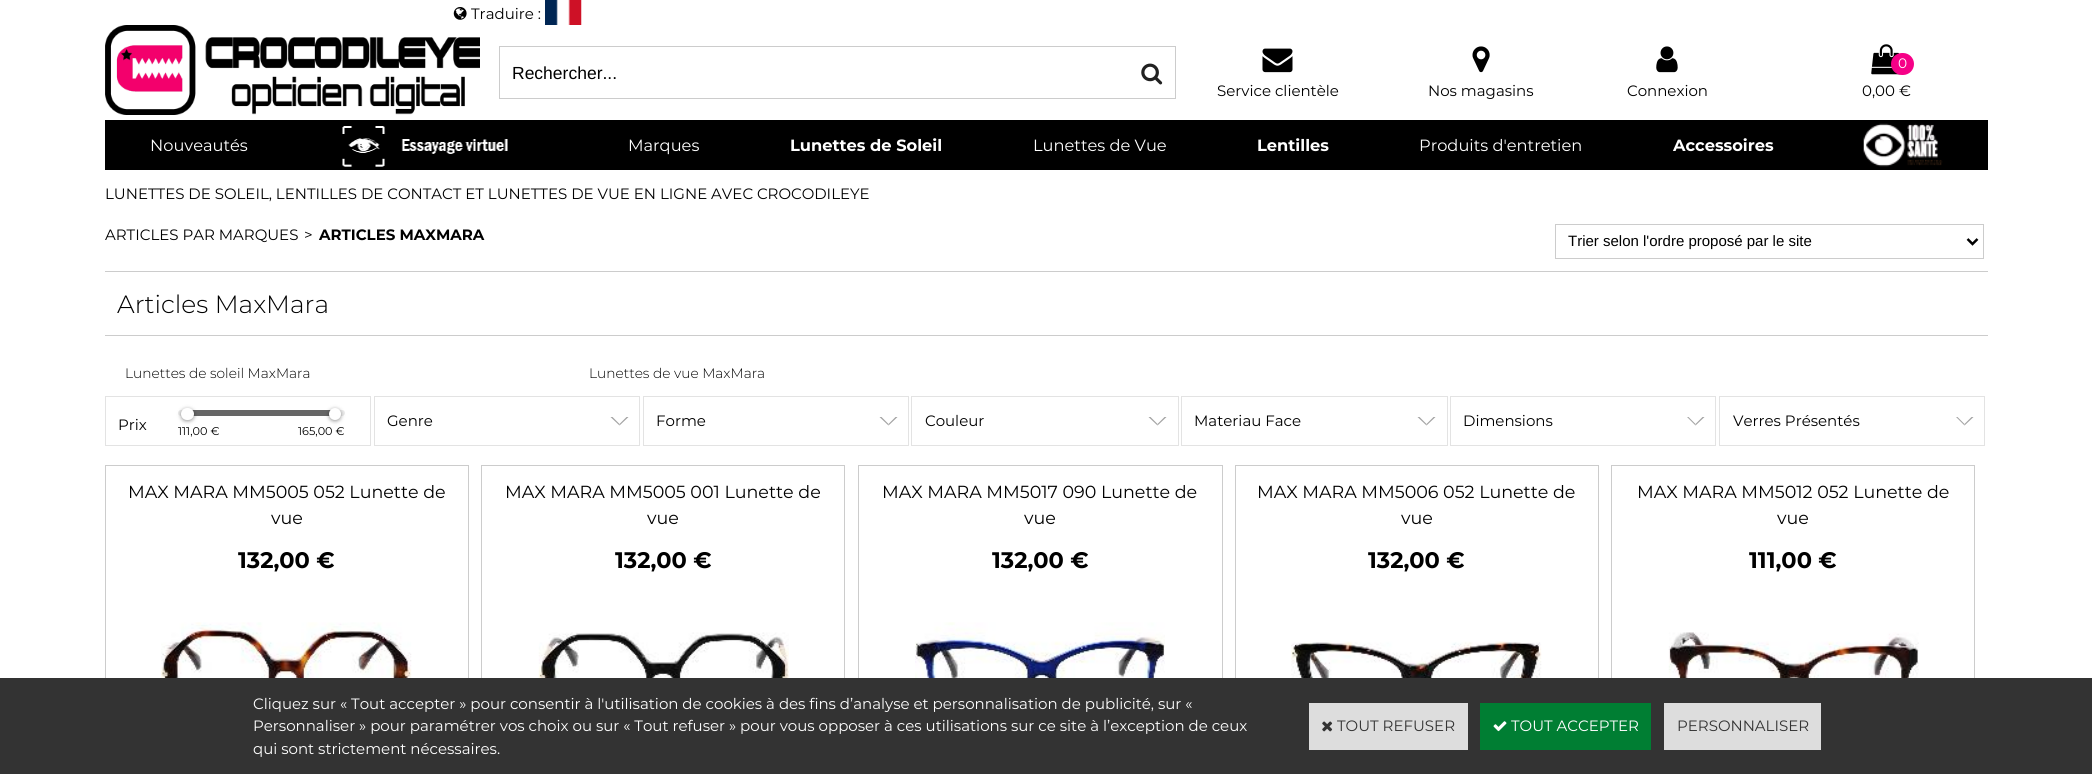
import math
import cairo

surface = cairo.ImageSurface(cairo.FORMAT_RGB24, 2092, 774)
ctx = cairo.Context(surface)
options = cairo.FontOptions()
options.set_hint_metrics(cairo.HINT_METRICS_OFF)
options.set_hint_style(cairo.HINT_STYLE_NONE)
ctx.set_font_options(options)
ctx.set_miter_limit(4)


def set_color(code):
    ctx.set_source_rgb(*(v / 255 for v in bytes.fromhex(code[-6:])))


def draw_text(x, y, s, family, size, color, bold=False, italic=False):
    ctx.select_font_face(family, cairo.FONT_SLANT_ITALIC if italic else cairo.FONT_SLANT_NORMAL, cairo.FONT_WEIGHT_BOLD if bold else cairo.FONT_WEIGHT_NORMAL)
    ctx.set_font_size(size)
    set_color(color)
    ctx.move_to(x, y)
    ctx.show_text(s)


def fill_rect(x, y, w, h, color):
    set_color(color)
    ctx.rectangle(x, y, w, h)
    ctx.fill()


def rounded_rect(x, y, w, h, r):
    ctx.new_sub_path()
    for i, (u, v) in enumerate([(x + w - r, y + h - r), (x + r, y + h - r), (x + r, y + r), (x + w - r, y + r)]):
        ctx.arc(u, v, r, i * math.pi / 2, (i + 1) * math.pi / 2)
    ctx.close_path()


def draw_shadow(x, y, w, h, r, blur, alpha):
    ctx.push_group_with_content(cairo.CONTENT_ALPHA)
    ctx.set_operator(cairo.OPERATOR_SOURCE)
    for i in range(15, -16, -2):
        e = blur * i / 6
        if min(w, h) + 2 * e > 0:
            ctx.set_source_rgba(0, 0, 0, alpha * math.erfc((i - 1) / 8.5) / 2)
            rounded_rect(x - e, y - e, w + 2 * e, h + 2 * e, max(0, min(r + e + blur * .6, min(w, h) / 2 + e)))
            ctx.fill()
    ctx.mask(ctx.pop_group())


def draw_image(path, x, y, w, h):
    ctx.save()
    ctx.set_source_surface(cairo.ImageSurface.create_from_png(path), x, y)
    ctx.rectangle(x, y, w, h)
    ctx.fill()
    ctx.restore()


set_color("#ffffff")
ctx.paint()
draw_image("assets/img1.png", 453, 7, 14, 13)
draw_text(471, 19, "Traduire :", "Montserrat", 15, "#000000")
draw_image("assets/img2.png", 545, 0, 37, 25)
draw_image("assets/img3.png", 105, 25, 375, 90)
ctx.rectangle(499.5, 46.5, 676, 52)
set_color("#cccccc")
ctx.set_line_width(1)
ctx.stroke()
draw_text(512, 79, "Rechercher...", "Liberation Sans", 17.5, "#000000")
draw_image("assets/img4.png", 1141, 63, 22, 22)
draw_image("assets/img5.png", 1871, 44, 30, 31)
set_color("#f60087")
rounded_rect(1891, 53, 23, 22, 11)
ctx.fill()
draw_text(1898, 68, "0", "Montserrat", 13.75, "#ffffff")
draw_text(1862, 96, "0,00 €", "Montserrat", 15, "#000000")
draw_image("assets/img6.png", 1262, 48, 31, 25)
draw_text(1217, 96, "Service clientèle", "Montserrat", 15, "#000000")
draw_image("assets/img7.png", 1472, 46, 18, 27)
draw_text(1428, 96, "Nos magasins", "Montserrat", 15, "#000000")
draw_image("assets/img8.png", 1656, 46, 22, 27)
draw_text(1627, 96, "Connexion", "Montserrat", 15, "#000000")
fill_rect(105, 120, 1883, 50, "#000000")
draw_text(150, 151, "Nouveautés", "Montserrat", 16.25, "#ffffff")
draw_image("assets/img9.png", 342, 126, 166, 41)
draw_text(628, 151, "Marques", "Montserrat", 16.25, "#ffffff")
draw_text(790, 151, "Lunettes de Soleil", "Montserrat", 16.25, "#ffffff", bold=True)
draw_text(1033, 151, "Lunettes de Vue", "Montserrat", 16.25, "#ffffff")
draw_text(1257, 151, "Lentilles", "Montserrat", 16.25, "#ffffff", bold=True)
draw_text(1419, 151, "Produits d'entretien", "Montserrat", 16.25, "#ffffff")
draw_text(1673, 151, "Accessoires", "Montserrat", 16.25, "#ffffff", bold=True)
draw_image("assets/img10.png", 1863, 123, 80, 44)
draw_text(105, 199, "LUNETTES DE SOLEIL, LENTILLES DE CONTACT ET LUNETTES DE VUE EN LIGNE AVEC CROCODILEYE", "Montserrat", 15, "#000000")
draw_text(105, 240, "ARTICLES PAR MARQUES", "Montserrat", 15, "#000000")
draw_text(304, 240, ">", "Montserrat", 15, "#000000")
draw_text(319, 240, "ARTICLES MAXMARA", "Montserrat", 15, "#000000", bold=True)
ctx.rectangle(1555.5, 224.5, 428, 34)
set_color("#cccccc")
ctx.stroke()
ctx.new_path()
ctx.move_to(1967.5, 239)
ctx.line_to(1972.5, 244)
ctx.line_to(1977.5, 239)
set_color("#000000")
ctx.set_line_width(2.5)
ctx.stroke()
draw_text(1568, 246, "Trier selon l'ordre proposé par le site", "Liberation Sans", 15, "#000000")
fill_rect(105, 271, 1883, 1, "#cccccc")
fill_rect(105, 335, 1883, 1, "#cccccc")
draw_text(117, 313, "Articles MaxMara", "Montserrat Light", 25, "#000000")
draw_text(125, 378, "Lunettes de soleil MaxMara", "Montserrat Light", 13.75, "#000000")
draw_text(589, 378, "Lunettes de vue MaxMara", "Montserrat Light", 13.75, "#000000")
ctx.rectangle(105.5, 396.5, 265, 49)
set_color("#e3e3e3")
ctx.set_line_width(1)
ctx.stroke()
draw_text(118, 430, "Prix", "Montserrat", 15, "#000000")
set_color("#ebebeb")
rounded_rect(178, 410, 167, 6, 3)
ctx.fill()
fill_rect(188, 410, 147, 6, "#666666")
set_color("#000000")
draw_shadow(181, 409, 13, 12, 6, 2, 0.4)
set_color("#ffffff")
rounded_rect(181, 408, 13, 12, 6)
ctx.fill()
set_color("#000000")
draw_shadow(329, 409, 12, 12, 6, 2, 0.4)
set_color("#ffffff")
ctx.arc(335, 414, 6, 0, 2 * math.pi)
ctx.fill()
draw_text(178, 435, "111,00 €", "Montserrat", 11.25, "#000000")
draw_text(298, 435, "165,00 €", "Montserrat", 11.25, "#000000")
ctx.rectangle(374.5, 396.5, 265, 49)
set_color("#e3e3e3")
ctx.stroke()
draw_text(387, 426, "Genre", "Montserrat", 15, "#000000")
set_color("#a3a3a3")
ctx.new_path()
ctx.move_to(628.5, 417)
ctx.line_to(619.5, 425.5)
ctx.line_to(619.5, 424)
ctx.line_to(626.5, 417)
ctx.close_path()
ctx.fill()
ctx.new_path()
ctx.move_to(619.5, 425.5)
ctx.line_to(610.5, 417)
ctx.line_to(612.5, 417)
ctx.line_to(619.5, 424)
ctx.close_path()
ctx.fill()
ctx.rectangle(643.5, 396.5, 265, 49)
set_color("#e3e3e3")
ctx.stroke()
draw_text(656, 426, "Forme", "Montserrat", 15, "#000000")
set_color("#a3a3a3")
ctx.new_path()
ctx.move_to(897.5, 417)
ctx.line_to(888.5, 425.5)
ctx.line_to(888.5, 424)
ctx.line_to(895.5, 417)
ctx.close_path()
ctx.fill()
ctx.new_path()
ctx.move_to(888.5, 425.5)
ctx.line_to(879.5, 417)
ctx.line_to(881.5, 417)
ctx.line_to(888.5, 424)
ctx.close_path()
ctx.fill()
ctx.rectangle(911.5, 396.5, 267, 49)
set_color("#e3e3e3")
ctx.stroke()
draw_text(925, 426, "Couleur", "Montserrat", 15, "#000000")
set_color("#a3a3a3")
ctx.new_path()
ctx.move_to(1166.5, 417)
ctx.line_to(1157.5, 425.5)
ctx.line_to(1157.5, 424)
ctx.line_to(1164.5, 417)
ctx.close_path()
ctx.fill()
ctx.new_path()
ctx.move_to(1157.5, 425.5)
ctx.line_to(1148.5, 417)
ctx.line_to(1150.5, 417)
ctx.line_to(1157.5, 424)
ctx.close_path()
ctx.fill()
ctx.rectangle(1181.5, 396.5, 266, 49)
set_color("#e3e3e3")
ctx.stroke()
draw_text(1194, 426, "Materiau Face", "Montserrat", 15, "#000000")
set_color("#a3a3a3")
ctx.new_path()
ctx.move_to(1435.5, 417)
ctx.line_to(1426.5, 425.5)
ctx.line_to(1426.5, 424)
ctx.line_to(1433.5, 417)
ctx.close_path()
ctx.fill()
ctx.new_path()
ctx.move_to(1426.5, 425.5)
ctx.line_to(1417.5, 417)
ctx.line_to(1419.5, 417)
ctx.line_to(1426.5, 424)
ctx.close_path()
ctx.fill()
ctx.rectangle(1450.5, 396.5, 265, 49)
set_color("#e3e3e3")
ctx.stroke()
draw_text(1463, 426, "Dimensions", "Montserrat", 15, "#000000")
set_color("#a3a3a3")
ctx.new_path()
ctx.move_to(1704.5, 417)
ctx.line_to(1695.5, 425.5)
ctx.line_to(1695.5, 424)
ctx.line_to(1702.5, 417)
ctx.close_path()
ctx.fill()
ctx.new_path()
ctx.move_to(1695.5, 425.5)
ctx.line_to(1687, 417)
ctx.line_to(1688.5, 417)
ctx.line_to(1695.5, 424)
ctx.close_path()
ctx.fill()
ctx.rectangle(1719.5, 396.5, 265, 49)
set_color("#e3e3e3")
ctx.stroke()
draw_text(1733, 426, "Verres Présentés", "Montserrat", 15, "#000000")
set_color("#a3a3a3")
ctx.new_path()
ctx.move_to(1973.5, 417)
ctx.line_to(1964.5, 425.5)
ctx.line_to(1964.5, 424)
ctx.line_to(1971.5, 417)
ctx.close_path()
ctx.fill()
ctx.new_path()
ctx.move_to(1964.5, 425.5)
ctx.line_to(1956, 417)
ctx.line_to(1957.5, 417)
ctx.line_to(1964.5, 424)
ctx.close_path()
ctx.fill()
ctx.rectangle(105.5, 465.5, 363, 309)
set_color("#cccccc")
ctx.stroke()
draw_text(128, 498, "MAX MARA MM5005 052 Lunette de", "Montserrat", 17.5, "#000000")
draw_text(271, 524, "vue", "Montserrat", 17.5, "#000000")
draw_text(238, 568, "132,00 €", "Montserrat", 22.5, "#000000", bold=True)
draw_image("assets/img11.png", 161, 622, 251, 56)
ctx.rectangle(481.5, 465.5, 363, 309)
set_color("#cccccc")
ctx.stroke()
draw_text(505, 498, "MAX MARA MM5005 001 Lunette de", "Montserrat", 17.5, "#000000")
draw_text(647, 524, "vue", "Montserrat", 17.5, "#000000")
draw_text(615, 568, "132,00 €", "Montserrat", 22.5, "#000000", bold=True)
draw_image("assets/img12.png", 538, 632, 251, 46)
ctx.rectangle(858.5, 465.5, 364, 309)
set_color("#cccccc")
ctx.stroke()
draw_text(882, 498, "MAX MARA MM5017 090 Lunette de", "Montserrat", 17.5, "#000000")
draw_text(1024, 524, "vue", "Montserrat", 17.5, "#000000")
draw_text(992, 568, "132,00 €", "Montserrat", 22.5, "#000000", bold=True)
draw_image("assets/img13.png", 915, 622, 250, 56)
ctx.rectangle(1235.5, 465.5, 363, 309)
set_color("#cccccc")
ctx.stroke()
draw_text(1257, 498, "MAX MARA MM5006 052 Lunette de", "Montserrat", 17.5, "#000000")
draw_text(1401, 524, "vue", "Montserrat", 17.5, "#000000")
draw_text(1368, 568, "132,00 €", "Montserrat", 22.5, "#000000", bold=True)
draw_image("assets/img14.png", 1291, 641, 251, 37)
ctx.rectangle(1611.5, 465.5, 363, 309)
set_color("#cccccc")
ctx.stroke()
draw_text(1637, 498, "MAX MARA MM5012 052 Lunette de", "Montserrat", 17.5, "#000000")
draw_text(1777, 524, "vue", "Montserrat", 17.5, "#000000")
draw_text(1749, 568, "111,00 €", "Montserrat", 22.5, "#000000", bold=True)
draw_image("assets/img15.png", 1668, 632, 251, 46)
fill_rect(0, 678, 2092, 96, "#333333")
draw_text(253, 709, "Cliquez sur « Tout accepter » pour consentir à l'utilisation de cookies à des fins d’analyse et personnalisation de publicité, sur «", "Montserrat", 15, "#ffffff")
draw_text(253, 731, "Personnaliser » pour paramétrer vos choix ou sur « Tout refuser » pour vous opposer à ces utilisations sur ce site à l’exception de ceux", "Montserrat", 15, "#ffffff")
draw_text(253, 754, "qui sont strictement nécessaires.", "Montserrat", 15, "#ffffff")
fill_rect(1309, 703, 159, 47, "#dddddd")
draw_image("assets/img16.png", 1322, 721, 11, 11)
draw_text(1337, 731, "TOUT REFUSER", "Montserrat", 15, "#333333")
fill_rect(1480, 703, 171, 47, "#007e33")
draw_image("assets/img17.png", 1493, 721, 14, 11)
draw_text(1511, 731, "TOUT ACCEPTER", "Montserrat", 15, "#ffffff")
fill_rect(1664, 703, 157, 47, "#dddddd")
draw_text(1677, 731, "PERSONNALISER", "Montserrat", 15, "#333333")
surface.write_to_png("output.png")
